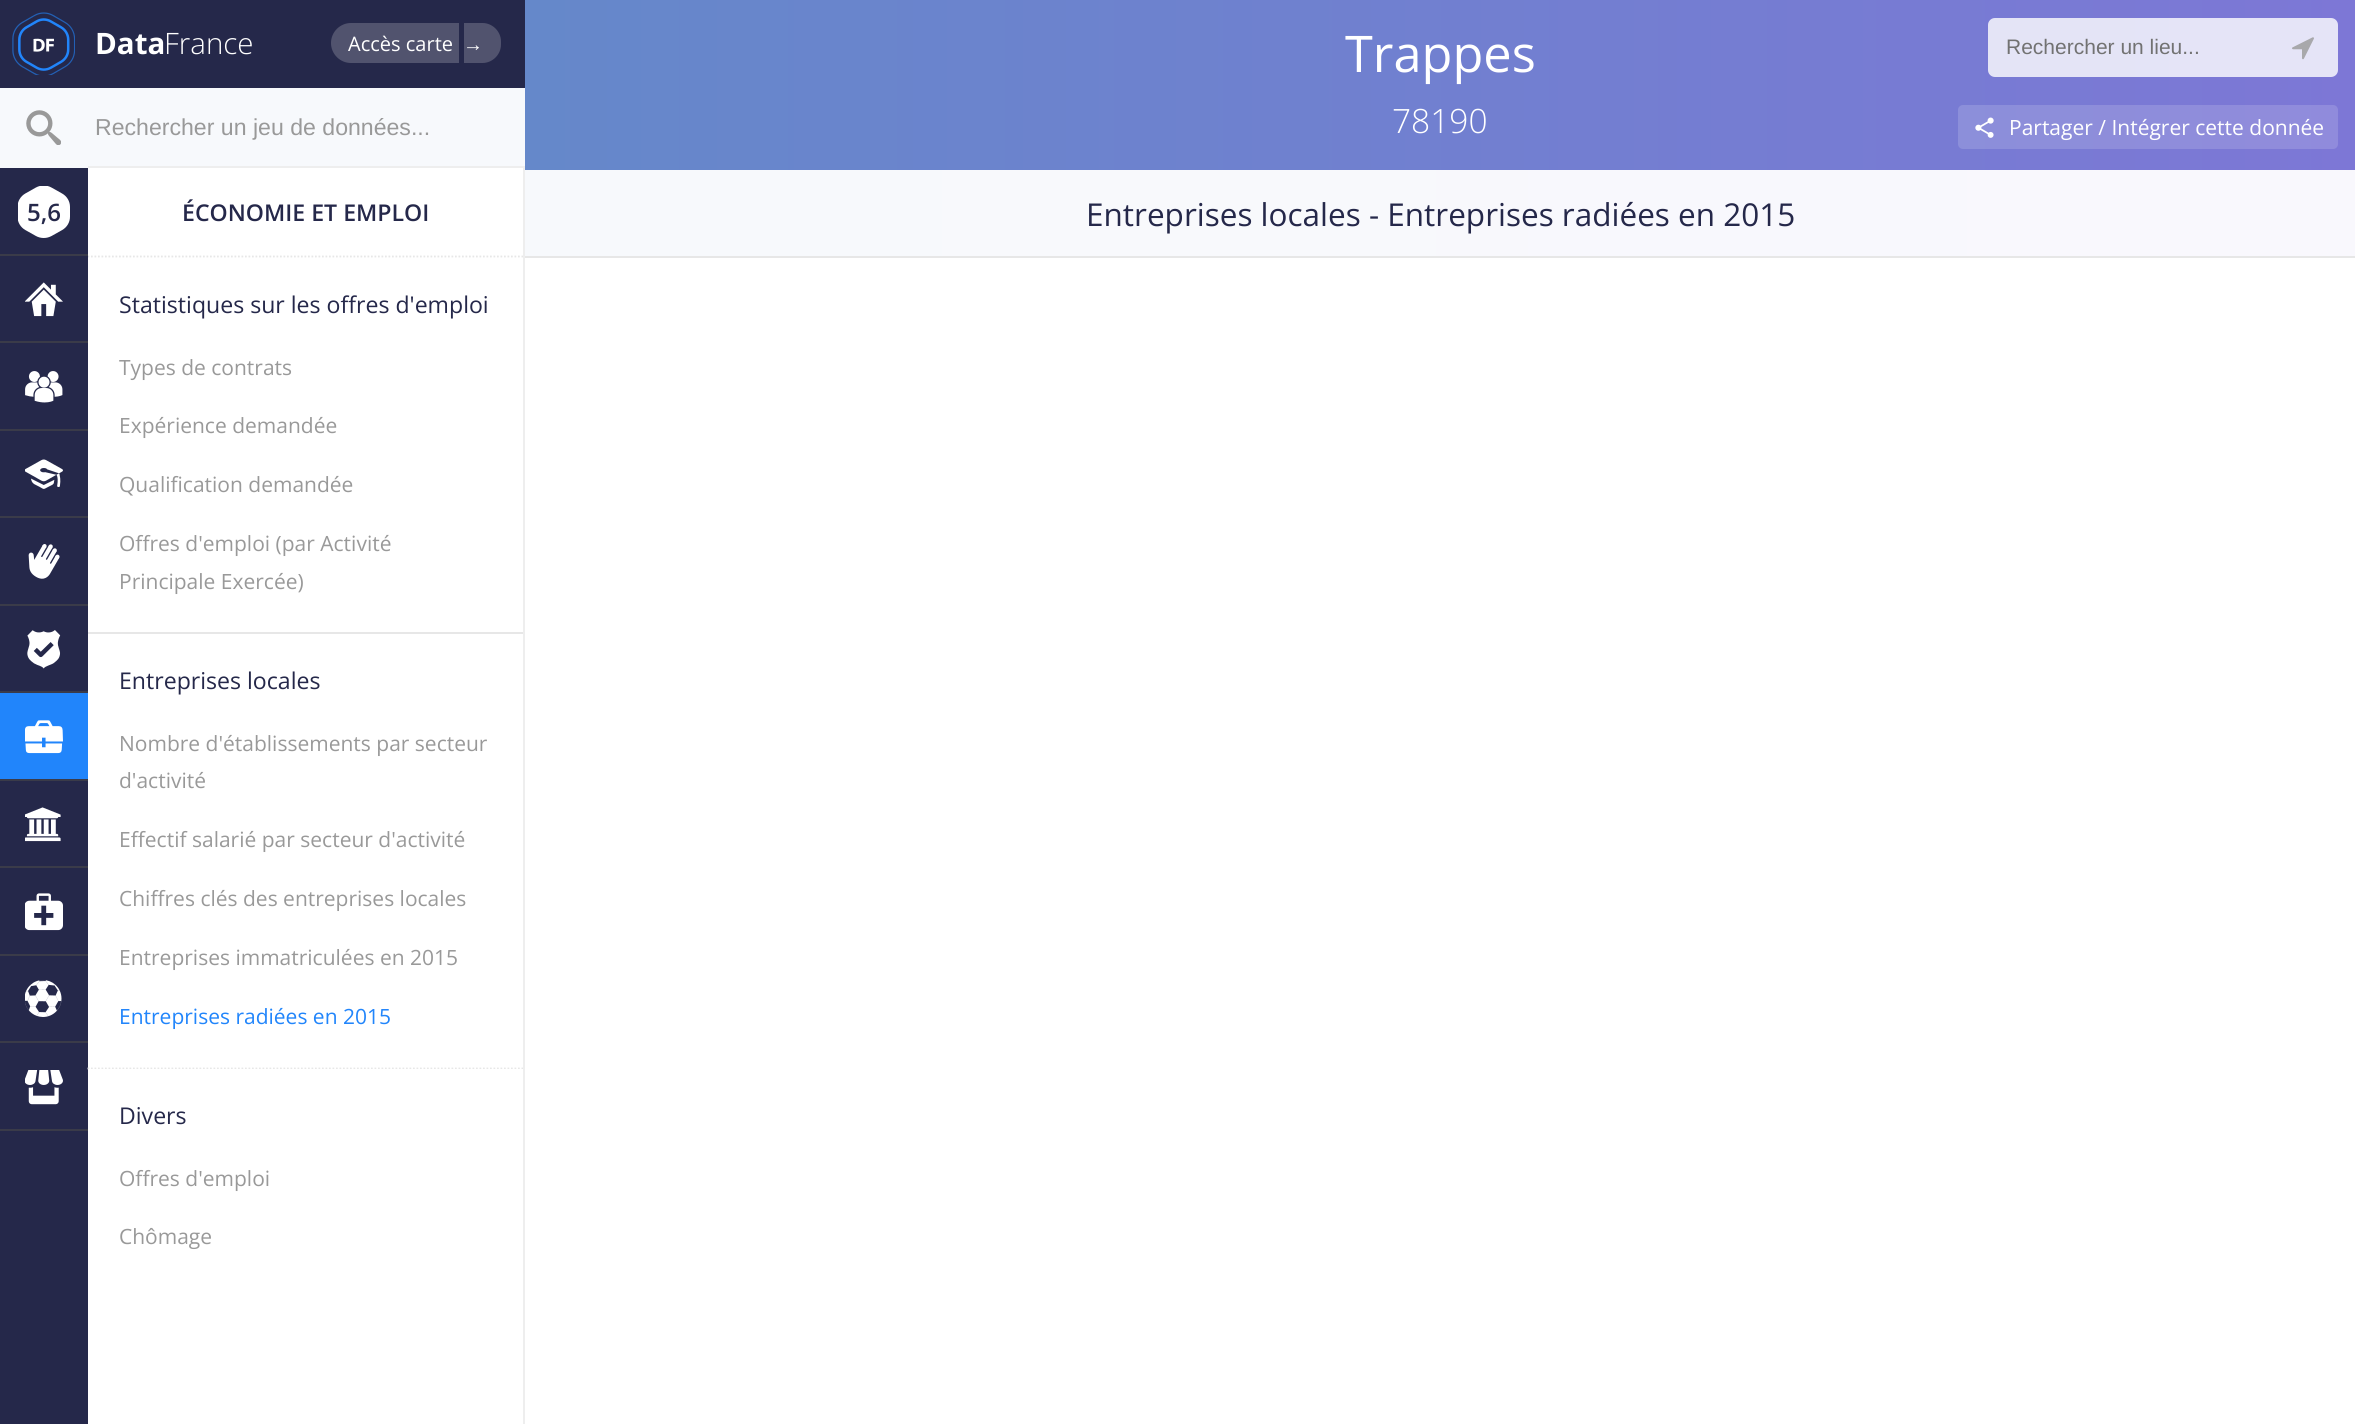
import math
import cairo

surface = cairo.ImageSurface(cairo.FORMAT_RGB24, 2355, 1424)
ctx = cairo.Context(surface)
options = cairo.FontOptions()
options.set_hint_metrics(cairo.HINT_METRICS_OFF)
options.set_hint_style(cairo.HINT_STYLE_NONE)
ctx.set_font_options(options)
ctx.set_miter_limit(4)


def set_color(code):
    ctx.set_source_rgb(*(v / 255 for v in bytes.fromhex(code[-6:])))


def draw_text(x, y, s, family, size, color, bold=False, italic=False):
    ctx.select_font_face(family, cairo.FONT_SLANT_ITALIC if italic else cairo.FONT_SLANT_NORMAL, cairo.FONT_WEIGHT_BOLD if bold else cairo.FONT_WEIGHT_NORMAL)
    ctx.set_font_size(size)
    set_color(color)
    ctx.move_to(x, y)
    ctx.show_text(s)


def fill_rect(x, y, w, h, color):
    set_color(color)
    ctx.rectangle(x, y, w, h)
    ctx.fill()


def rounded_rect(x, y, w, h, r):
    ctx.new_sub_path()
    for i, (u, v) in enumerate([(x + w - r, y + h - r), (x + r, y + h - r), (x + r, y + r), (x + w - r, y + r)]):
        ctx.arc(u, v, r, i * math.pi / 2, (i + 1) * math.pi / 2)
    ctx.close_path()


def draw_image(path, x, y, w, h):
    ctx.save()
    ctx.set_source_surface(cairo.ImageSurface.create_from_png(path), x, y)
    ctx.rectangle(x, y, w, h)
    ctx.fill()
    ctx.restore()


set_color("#ffffff")
ctx.paint()
fill_rect(0, 0, 525, 88, "#25284a")
draw_image("assets/img1.png", 12, 12, 63, 63)
draw_text(95, 54, "Data", "Open Sans", 29.5, "#ffffff", bold=True)
draw_text(164, 54, "France", "Open Sans Light", 29.5, "#ffffff")
set_color("#51536e")
ctx.new_path()
ctx.move_to(351, 23)
ctx.line_to(459, 23)
ctx.line_to(459, 63)
ctx.line_to(351, 63)
ctx.curve_to(340, 63, 331, 54, 331, 43)
ctx.curve_to(331, 32, 340, 23, 351, 23)
ctx.close_path()
ctx.fill()
draw_text(348, 51, "Accès carte", "Open Sans", 20, "#ffffff")
set_color("#51536e")
ctx.new_path()
ctx.move_to(464, 23)
ctx.line_to(482.5, 23)
ctx.curve_to(492.5, 23, 501, 31.5, 501, 41.5)
ctx.line_to(501, 44.5)
ctx.curve_to(501, 54.5, 492.5, 63, 482.5, 63)
ctx.line_to(464, 63)
ctx.close_path()
ctx.fill()
draw_text(463, 51, "→", "Liberation Sans", 20, "#ffffff")
fill_rect(88, 166, 437, 2, "#eeeeee")
fill_rect(0, 88, 88, 80, "#f7f9fc")
draw_image("assets/img2.png", 26, 110, 35, 35)
fill_rect(88, 88, 437, 78, "#f7f9fc")
draw_text(95, 135, "Rechercher un jeu de données...", "Liberation Sans", 23.1, "#999999")
ctx.new_path()
ctx.move_to(87.5, 256.5)
ctx.line_to(523, 256.5)
set_color("#e7e7e7")
ctx.set_line_width(1.8)
ctx.set_dash([1.75, 1.75])
ctx.stroke()
fill_rect(0, 168, 88, 1256, "#25284a")
fill_rect(0, 254, 88, 2, "#3a3b49")
draw_image("assets/img3.png", 18, 186, 52, 52)
draw_text(27, 221, "5,6", "Open Sans SemiBold", 24, "#25284a")
fill_rect(0, 341, 88, 2, "#3a3b49")
draw_image("assets/img4.png", 25, 282, 38, 35)
fill_rect(0, 429, 88, 2, "#3a3b49")
draw_image("assets/img5.png", 25, 371, 38, 32)
fill_rect(0, 516, 88, 2, "#3a3b49")
draw_image("assets/img6.png", 25, 459, 38, 30)
fill_rect(0, 604, 88, 2, "#3a3b49")
draw_image("assets/img7.png", 28, 544, 32, 35)
fill_rect(0, 691, 88, 2, "#3a3b49")
draw_image("assets/img8.png", 27, 630, 34, 39)
fill_rect(0, 693, 88, 86, "#2185fb")
fill_rect(0, 779, 88, 2, "#3a3b49")
draw_image("assets/img9.png", 25, 720, 38, 34)
fill_rect(0, 866, 88, 2, "#3a3b49")
draw_image("assets/img10.png", 25, 807, 36, 35)
fill_rect(0, 954, 88, 2, "#3a3b49")
draw_image("assets/img11.png", 25, 893, 38, 38)
fill_rect(0, 1041, 88, 2, "#3a3b49")
draw_image("assets/img12.png", 25, 980, 37, 37)
fill_rect(0, 1129, 88, 2, "#3a3b49")
draw_image("assets/img13.png", 25, 1070, 38, 35)
fill_rect(523, 168, 2, 1256, "#eeeeee")
draw_text(182, 221, "ÉCONOMIE ET EMPLOI", "Open Sans SemiBold", 23.1, "#25284a")
fill_rect(88, 632, 435, 2, "#e7e7e7")
draw_text(119, 313, "Statistiques sur les offres d'emploi", "Open Sans", 23.1, "#25284a")
draw_text(119, 375, "Types de contrats", "Open Sans", 21, "#999999")
draw_text(119, 433, "Expérience demandée", "Open Sans", 21, "#999999")
draw_text(119, 492, "Qualification demandée", "Open Sans", 21, "#999999")
draw_text(119, 551, "Offres d'emploi (par Activité", "Open Sans", 21, "#999999")
draw_text(119, 589, "Principale Exercée)", "Open Sans", 21, "#999999")
ctx.new_path()
ctx.move_to(87.5, 1068.5)
ctx.line_to(523, 1068.5)
set_color("#e7e7e7")
ctx.stroke()
draw_text(119, 689, "Entreprises locales", "Open Sans", 23.1, "#25284a")
draw_text(119, 751, "Nombre d'établissements par secteur", "Open Sans", 21, "#999999")
draw_text(119, 788, "d'activité", "Open Sans", 21, "#999999")
draw_text(119, 847, "Effectif salarié par secteur d'activité", "Open Sans", 21, "#999999")
draw_text(119, 906, "Chiffres clés des entreprises locales", "Open Sans", 21, "#999999")
draw_text(119, 965, "Entreprises immatriculées en 2015", "Open Sans", 21, "#999999")
draw_text(119, 1024, "Entreprises radiées en 2015", "Open Sans", 21, "#2185fb")
fill_rect(88, 1069, 435, 1, "#ffffff")
draw_text(119, 1124, "Divers", "Open Sans", 23.1, "#25284a")
draw_text(119, 1186, "Offres d'emploi", "Open Sans", 21, "#999999")
draw_text(119, 1244, "Chômage", "Open Sans", 21, "#999999")
gradient = cairo.LinearGradient(525, 129, 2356, 129)
gradient.add_color_stop_rgba(0, 0.396, 0.533, 0.792, 1)
gradient.add_color_stop_rgba(1, 0.49, 0.467, 0.839, 1)
ctx.set_source(gradient)
ctx.rectangle(525, 0, 1830, 170)
ctx.fill()
gradient = cairo.LinearGradient(525, 129, 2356, 129)
gradient.add_color_stop_rgba(0, 0.969, 0.976, 0.988, 1)
gradient.add_color_stop_rgba(1, 0.976, 0.973, 0.992, 1)
ctx.set_source(gradient)
ctx.rectangle(525, 170, 1830, 86)
ctx.fill()
draw_text(1345, 72, "Trappes", "Open Sans", 50.5, "#ffffff")
draw_text(1392, 133, "78190", "Open Sans Light", 33.5, "#ffffff")
ctx.set_source_rgba(1, 1, 1, 0.15)
rounded_rect(1958, 105, 380, 44, 5)
ctx.fill()
draw_image("assets/img14.png", 1975, 117, 19, 21)
draw_text(2009, 135, "Partager / Intégrer cette donnée", "Open Sans", 21, "#ffffff")
fill_rect(525, 256, 1830, 2, "#e7e7e7")
draw_text(1086, 226, "Entreprises locales - Entreprises radiées en 2015", "Open Sans", 31.5, "#25284a")
ctx.set_source_rgba(1, 1, 1, 0.8)
rounded_rect(1988, 18, 350, 59, 7)
ctx.fill()
draw_text(2006, 54, "Rechercher un lieu...", "Liberation Sans", 21, "#727272")
draw_image("assets/img15.png", 2292, 37, 22, 23)
surface.write_to_png("output.png")
